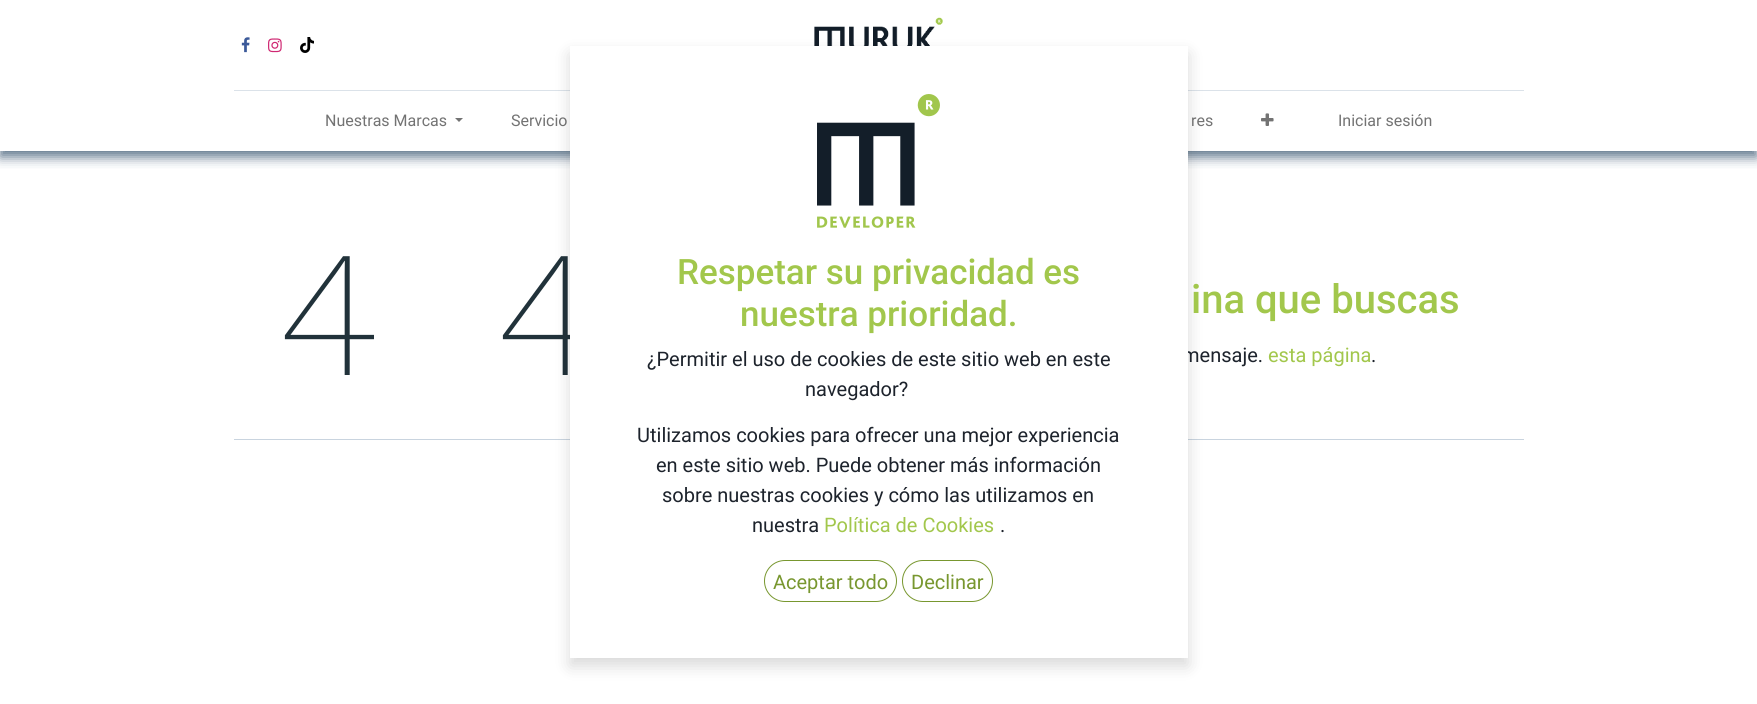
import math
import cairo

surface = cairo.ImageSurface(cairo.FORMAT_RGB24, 1757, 704)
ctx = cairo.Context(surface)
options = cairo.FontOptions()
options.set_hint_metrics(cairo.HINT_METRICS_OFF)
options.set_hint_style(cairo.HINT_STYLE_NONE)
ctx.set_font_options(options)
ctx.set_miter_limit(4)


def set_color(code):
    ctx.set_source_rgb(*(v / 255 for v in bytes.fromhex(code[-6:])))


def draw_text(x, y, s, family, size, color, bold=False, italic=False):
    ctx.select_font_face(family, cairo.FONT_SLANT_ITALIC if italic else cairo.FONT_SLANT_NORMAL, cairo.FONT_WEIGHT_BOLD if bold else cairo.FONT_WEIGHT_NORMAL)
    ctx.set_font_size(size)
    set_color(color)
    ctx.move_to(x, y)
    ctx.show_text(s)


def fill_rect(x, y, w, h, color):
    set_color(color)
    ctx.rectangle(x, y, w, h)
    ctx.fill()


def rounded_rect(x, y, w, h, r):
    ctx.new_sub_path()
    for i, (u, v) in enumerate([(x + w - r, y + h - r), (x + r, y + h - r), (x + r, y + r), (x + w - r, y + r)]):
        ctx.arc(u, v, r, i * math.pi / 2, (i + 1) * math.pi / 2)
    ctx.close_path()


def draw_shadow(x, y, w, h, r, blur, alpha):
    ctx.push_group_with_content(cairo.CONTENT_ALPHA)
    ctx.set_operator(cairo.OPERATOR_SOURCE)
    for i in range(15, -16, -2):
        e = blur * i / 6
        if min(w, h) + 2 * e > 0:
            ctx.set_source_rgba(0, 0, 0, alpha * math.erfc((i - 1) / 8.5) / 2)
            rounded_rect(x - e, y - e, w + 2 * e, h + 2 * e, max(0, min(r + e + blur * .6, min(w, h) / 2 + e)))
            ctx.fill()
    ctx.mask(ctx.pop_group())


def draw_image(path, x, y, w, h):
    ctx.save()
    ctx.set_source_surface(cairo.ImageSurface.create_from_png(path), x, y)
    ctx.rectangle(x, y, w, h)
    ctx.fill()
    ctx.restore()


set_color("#ffffff")
ctx.paint()
ctx.save()
ctx.rectangle(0, 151, 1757, 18)
ctx.clip()
set_color("#5e758b")
draw_shadow(0, 6, 1757, 151, 0, 6, 1)
ctx.restore()
draw_image("assets/img1.png", 241, 37, 9, 16)
draw_image("assets/img2.png", 268, 38, 14, 15)
draw_image("assets/img3.png", 300, 37, 14, 16)
draw_image("assets/img4.png", 814, 17, 129, 29)
fill_rect(234, 90, 1290, 1, "#dbe2e9")
draw_text(325, 126, "Nuestras Marcas", "Roboto", 16, "#737373")
ctx.new_path()
ctx.move_to(455, 118)
ctx.line_to(463, 118)
ctx.line_to(459, 122)
ctx.close_path()
ctx.fill()
draw_text(511, 126, "Servicio", "Roboto", 16, "#737373")
draw_text(1191, 126, "res", "Roboto", 16, "#737373")
draw_image("assets/img5.png", 1261, 113, 13, 13)
draw_text(1338, 126, "Iniciar sesión", "Roboto", 16, "#737373")
draw_image("assets/img7.png", 284, 256, 286, 119)
fill_rect(234, 439, 1290, 1, "#c9d4df")
set_color("#000000")
draw_shadow(570, 54, 618, 612, 0, 8, 0.15)
draw_text(1182, 362, "mensaje.", "Roboto", 20, "#1d232c")
fill_rect(570, 46, 618, 612, "#ffffff")
draw_image("assets/img6.png", 817, 94, 123, 134)
draw_text(677, 284, "Respetar su privacidad es", "Roboto Medium", 35, "#a2c74c")
draw_text(740, 326, "nuestra prioridad.", "Roboto Medium", 35, "#a2c74c")
draw_text(647, 366, "¿Permitir el uso de cookies de este sitio web en este", "Roboto", 20, "#1d232c")
draw_text(805, 396, "navegador?", "Roboto", 20, "#1d232c")
draw_text(637, 442, "Utilizamos cookies para ofrecer una mejor experiencia", "Roboto", 20, "#1d232c")
draw_text(656, 472, "en este sitio web. Puede obtener más información", "Roboto", 20, "#1d232c")
draw_text(662, 502, "sobre nuestras cookies y cómo las utilizamos en", "Roboto", 20, "#1d232c")
draw_text(752, 532, "nuestra", "Roboto", 20, "#1d232c")
draw_text(824, 532, "Política de Cookies", "Roboto", 20, "#a2c74c")
draw_text(1000, 532, ".", "Roboto", 20, "#1d232c")
rounded_rect(764.5, 560.5, 132, 41, 20.5)
set_color("#78972f")
ctx.set_line_width(1)
ctx.stroke()
draw_text(773, 589, "Aceptar todo", "Roboto", 20, "#78972f")
rounded_rect(902.5, 560.5, 90, 41, 20.5)
ctx.stroke()
draw_text(911, 589, "Declinar", "Roboto", 20, "#78972f")
draw_text(1191, 313, "ina que buscas", "Roboto Medium", 40, "#a2c74c")
draw_text(1268, 362, "esta página", "Roboto", 20, "#a2c74c")
draw_text(1371, 362, ".", "Roboto", 20, "#1d232c")
surface.write_to_png("output.png")
